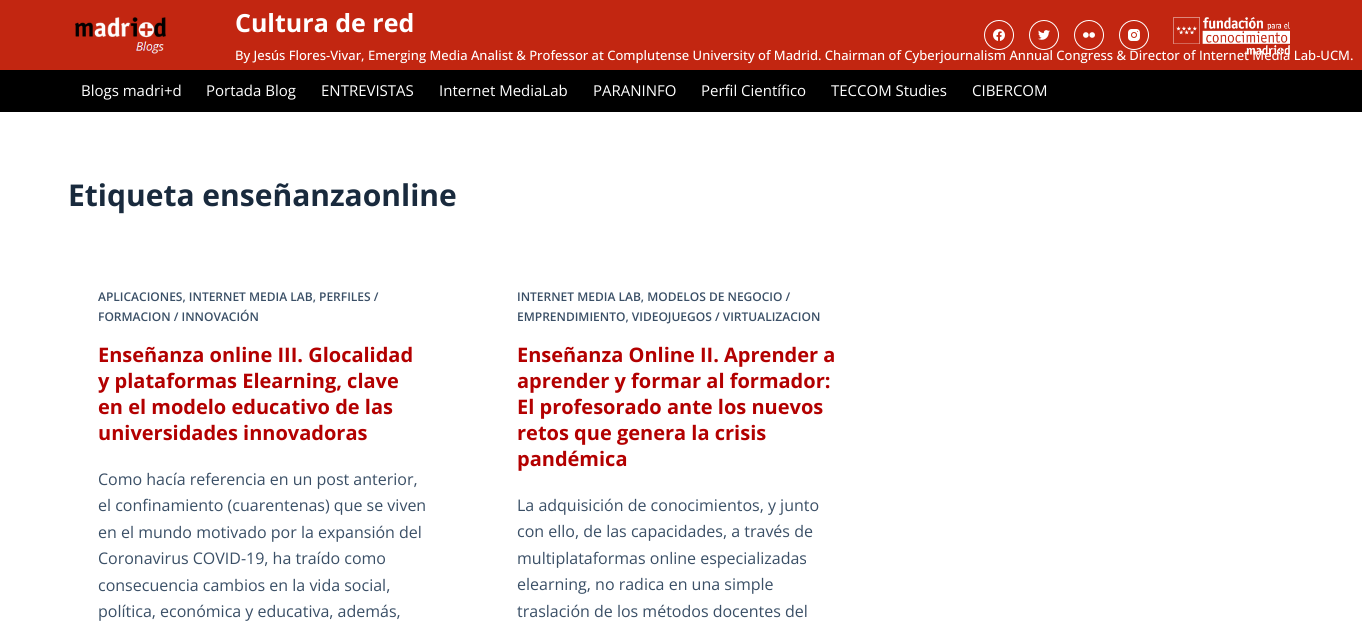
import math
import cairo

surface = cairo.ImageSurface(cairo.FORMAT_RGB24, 1362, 631)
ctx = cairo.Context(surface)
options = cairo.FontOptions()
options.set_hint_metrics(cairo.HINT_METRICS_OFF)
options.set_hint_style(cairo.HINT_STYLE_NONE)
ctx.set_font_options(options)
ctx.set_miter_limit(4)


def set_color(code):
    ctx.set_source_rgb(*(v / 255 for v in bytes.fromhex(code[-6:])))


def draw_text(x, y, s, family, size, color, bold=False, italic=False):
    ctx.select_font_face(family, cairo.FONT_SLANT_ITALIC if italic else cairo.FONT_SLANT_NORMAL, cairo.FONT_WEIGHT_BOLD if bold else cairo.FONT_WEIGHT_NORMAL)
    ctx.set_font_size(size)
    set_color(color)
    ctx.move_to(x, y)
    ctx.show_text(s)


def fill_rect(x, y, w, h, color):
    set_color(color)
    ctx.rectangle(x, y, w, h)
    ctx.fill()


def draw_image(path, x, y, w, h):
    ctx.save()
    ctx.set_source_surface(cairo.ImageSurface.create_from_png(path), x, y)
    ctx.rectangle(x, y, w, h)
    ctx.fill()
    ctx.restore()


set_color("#ffffff")
ctx.paint()
fill_rect(0, 0, 1362, 70, "#c22611")
draw_image("assets/img1.png", 75, 17, 91, 37)
draw_text(235, 32, "Cultura de red", "Open Sans", 25, "#ffffff", bold=True)
draw_text(235, 60, "By Jesús Flores-Vivar, Emerging Media Analist & Professor at Complutense University of Madrid. Chairman of Cyberjournalism Annual Congress & Director of Internet Media Lab-UCM.", "Open Sans Medium", 13, "#ffffff")
ctx.new_path()
ctx.arc(999, 35, 14.5, 0, 2 * math.pi)
ctx.set_line_width(1)
ctx.stroke()
draw_image("assets/img2.png", 993, 29, 12, 12)
ctx.arc(1044, 35, 14.5, 0, 2 * math.pi)
ctx.stroke()
draw_image("assets/img3.png", 1038, 30, 12, 10)
ctx.arc(1089, 35, 14.5, 0, 2 * math.pi)
ctx.stroke()
draw_image("assets/img4.png", 1083, 32, 12, 6)
ctx.arc(1134, 35, 14.5, 0, 2 * math.pi)
ctx.stroke()
draw_image("assets/img5.png", 1128, 29, 12, 12)
draw_image("assets/img6.png", 1173, 17, 117, 38)
fill_rect(0, 70, 1362, 42, "#000000")
draw_text(81, 96, "Blogs madri+d", "Open Sans", 15, "#ffffff")
draw_text(206, 96, "Portada Blog", "Open Sans", 15, "#ffffff")
draw_text(321, 96, "ENTREVISTAS", "Open Sans", 15, "#ffffff")
draw_text(439, 96, "Internet MediaLab", "Open Sans", 15, "#ffffff")
draw_text(593, 96, "PARANINFO", "Open Sans", 15, "#ffffff")
draw_text(701, 96, "Perfil Científico", "Open Sans", 15, "#ffffff")
draw_text(831, 96, "TECCOM Studies", "Open Sans", 15, "#ffffff")
draw_text(972, 96, "CIBERCOM", "Open Sans", 15, "#ffffff")
draw_text(68, 206, "Etiqueta enseñanzaonline", "Open Sans", 30, "#192a3d", bold=True)
draw_text(98, 301, "APLICACIONES, INTERNET MEDIA LAB, PERFILES /", "Open Sans SemiBold", 12, "#3a4f66")
draw_text(98, 321, "FORMACION / INNOVACIÓN", "Open Sans SemiBold", 12, "#3a4f66")
draw_text(98, 362, "Enseñanza online III. Glocalidad", "Open Sans", 20, "#b30000", bold=True)
draw_text(98, 388, "y plataformas Elearning, clave", "Open Sans", 20, "#b30000", bold=True)
draw_text(98, 414, "en el modelo educativo de las", "Open Sans", 20, "#b30000", bold=True)
draw_text(98, 440, "universidades innovadoras", "Open Sans", 20, "#b30000", bold=True)
draw_text(98, 485, "Como hacía referencia en un post anterior,", "Open Sans", 16, "#3a4f66")
draw_text(98, 511, "el confinamiento (cuarentenas) que se viven", "Open Sans", 16, "#3a4f66")
draw_text(98, 538, "en el mundo motivado por la expansión del", "Open Sans", 16, "#3a4f66")
draw_text(98, 564, "Coronavirus COVID-19, ha traído como", "Open Sans", 16, "#3a4f66")
draw_text(98, 591, "consecuencia cambios en la vida social,", "Open Sans", 16, "#3a4f66")
draw_text(98, 617, "política, económica y educativa, además,", "Open Sans", 16, "#3a4f66")
draw_text(517, 301, "INTERNET MEDIA LAB, MODELOS DE NEGOCIO /", "Open Sans SemiBold", 12, "#3a4f66")
draw_text(517, 321, "EMPRENDIMIENTO, VIDEOJUEGOS / VIRTUALIZACION", "Open Sans SemiBold", 12, "#3a4f66")
draw_text(517, 362, "Enseñanza Online II. Aprender a", "Open Sans", 20, "#b30000", bold=True)
draw_text(517, 388, "aprender y formar al formador:", "Open Sans", 20, "#b30000", bold=True)
draw_text(517, 414, "El profesorado ante los nuevos", "Open Sans", 20, "#b30000", bold=True)
draw_text(517, 440, "retos que genera la crisis", "Open Sans", 20, "#b30000", bold=True)
draw_text(517, 466, "pandémica", "Open Sans", 20, "#b30000", bold=True)
draw_text(517, 511, "La adquisición de conocimientos, y junto", "Open Sans", 16, "#3a4f66")
draw_text(517, 537, "con ello, de las capacidades, a través de", "Open Sans", 16, "#3a4f66")
draw_text(517, 564, "multiplataformas online especializadas", "Open Sans", 16, "#3a4f66")
draw_text(517, 590, "elearning, no radica en una simple", "Open Sans", 16, "#3a4f66")
draw_text(517, 617, "traslación de los métodos docentes del", "Open Sans", 16, "#3a4f66")
surface.write_to_png("output.png")
